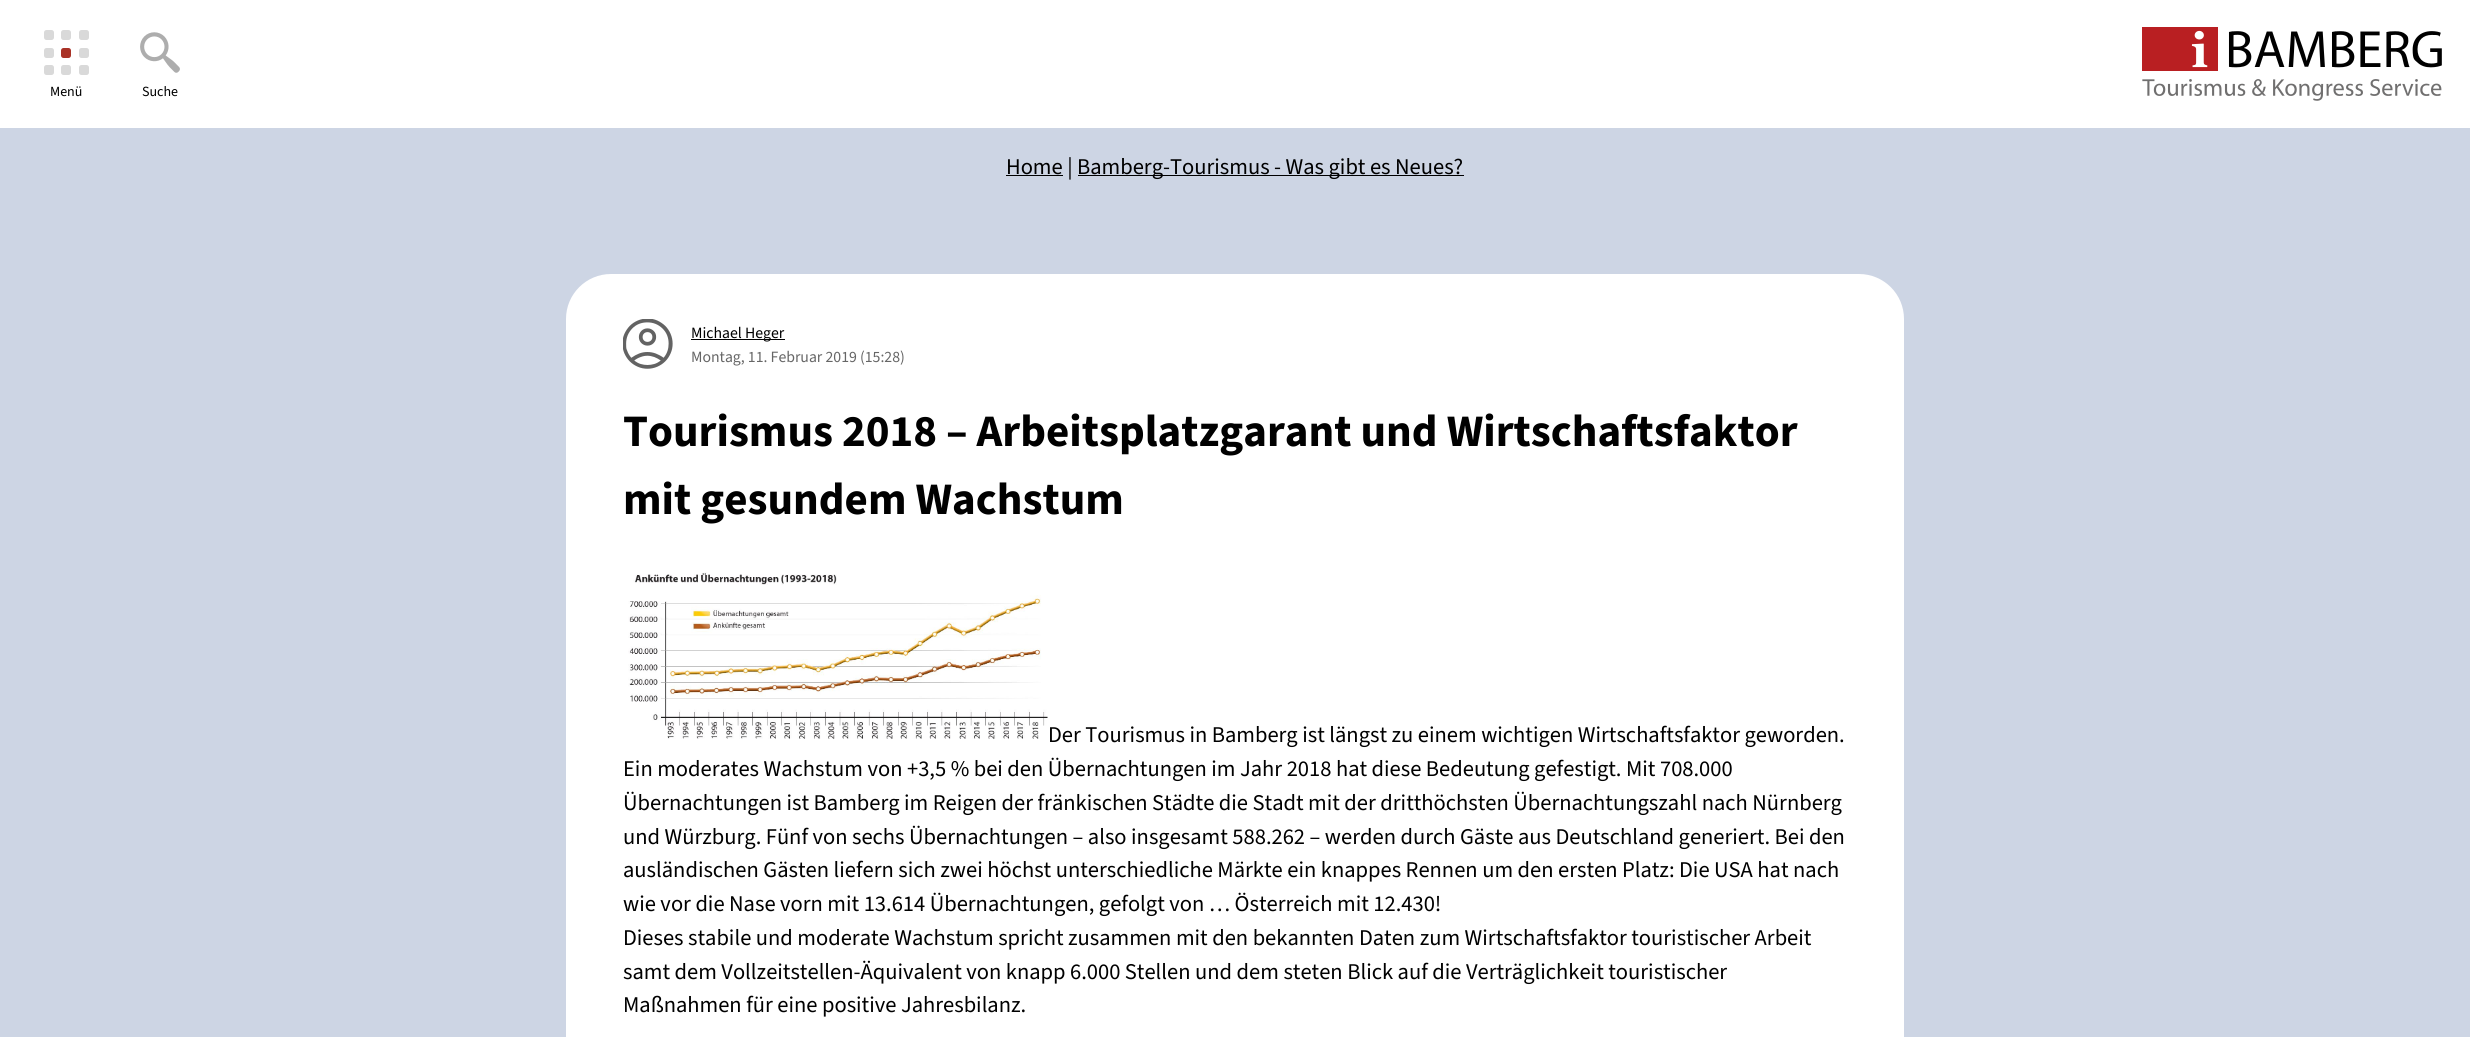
import math
import cairo

surface = cairo.ImageSurface(cairo.FORMAT_RGB24, 2470, 1037)
ctx = cairo.Context(surface)
options = cairo.FontOptions()
options.set_hint_metrics(cairo.HINT_METRICS_OFF)
options.set_hint_style(cairo.HINT_STYLE_NONE)
ctx.set_font_options(options)
ctx.set_miter_limit(4)


def set_color(code):
    ctx.set_source_rgb(*(v / 255 for v in bytes.fromhex(code[-6:])))


def draw_text(x, y, s, family, size, color, bold=False, italic=False):
    ctx.select_font_face(family, cairo.FONT_SLANT_ITALIC if italic else cairo.FONT_SLANT_NORMAL, cairo.FONT_WEIGHT_BOLD if bold else cairo.FONT_WEIGHT_NORMAL)
    ctx.set_font_size(size)
    set_color(color)
    ctx.move_to(x, y)
    ctx.show_text(s)


def fill_rect(x, y, w, h, color):
    set_color(color)
    ctx.rectangle(x, y, w, h)
    ctx.fill()


def rounded_rect(x, y, w, h, r):
    ctx.new_sub_path()
    for i, (u, v) in enumerate([(x + w - r, y + h - r), (x + r, y + h - r), (x + r, y + r), (x + w - r, y + r)]):
        ctx.arc(u, v, r, i * math.pi / 2, (i + 1) * math.pi / 2)
    ctx.close_path()


def draw_image(path, x, y, w, h):
    ctx.save()
    ctx.set_source_surface(cairo.ImageSurface.create_from_png(path), x, y)
    ctx.rectangle(x, y, w, h)
    ctx.fill()
    ctx.restore()


set_color("#cdd5e4")
ctx.paint()
fill_rect(0, 0, 2470, 128, "#ffffff")
set_color("#d9d9d9")
rounded_rect(44, 30, 10, 10, 2.5)
ctx.fill()
rounded_rect(61, 30, 10, 10, 2.5)
ctx.fill()
rounded_rect(79, 30, 10, 10, 2.5)
ctx.fill()
rounded_rect(44, 48, 10, 10, 2.5)
ctx.fill()
set_color("#a93227")
rounded_rect(61, 48, 10, 10, 2.5)
ctx.fill()
set_color("#d9d9d9")
rounded_rect(79, 48, 10, 10, 2.5)
ctx.fill()
rounded_rect(44, 65, 10, 10, 2.5)
ctx.fill()
rounded_rect(61, 65, 10, 10, 2.5)
ctx.fill()
rounded_rect(79, 65, 10, 10, 2.5)
ctx.fill()
draw_text(50, 96, "Menü", "Source Sans 3", 14, "#000000")
draw_image("assets/img1.png", 140, 32, 40, 41)
draw_text(142, 96, "Suche", "Source Sans 3", 14, "#000000")
draw_image("assets/img2.png", 2142, 27, 300, 74)
fill_rect(1006, 175, 57, 1, "#000000")
draw_text(1006, 174, "Home |", "Source Sans 3", 22.5, "#000000")
fill_rect(1078, 175, 386, 1, "#000000")
draw_text(1077, 174, "Bamberg-Tourismus - Was gibt es Neues?", "Source Sans 3", 22.5, "#000000")
set_color("#ffffff")
rounded_rect(566, 274, 1338, 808, 45)
ctx.fill()
draw_image("assets/img3.png", 623, 319, 50, 50)
fill_rect(691, 339, 94, 1, "#000000")
draw_text(691, 338, "Michael Heger", "Source Sans 3", 15.75, "#000000")
draw_text(691, 362, "Montag, 11. Februar 2019 (15:28)", "Source Sans 3", 15.75, "#666666")
draw_text(623, 446, "Tourismus 2018 – Arbeitsplatzgarant und Wirtschaftsfaktor", "Source Sans 3", 45, "#000000", bold=True)
draw_text(623, 514, "mit gesundem Wachstum", "Source Sans 3", 45, "#000000", bold=True)
draw_image("assets/img4.png", 628, 572, 420, 167)
draw_text(1048, 742, "Der Tourismus in Bamberg ist längst zu einem wichtigen Wirtschaftsfaktor geworden.", "Source Sans 3", 22.5, "#000000")
draw_text(623, 776, "Ein moderates Wachstum von +3,5 % bei den Übernachtungen im Jahr 2018 hat diese Bedeutung gefestigt. Mit 708.000", "Source Sans 3", 22.5, "#000000")
draw_text(623, 810, "Übernachtungen ist Bamberg im Reigen der fränkischen Städte die Stadt mit der dritthöchsten Übernachtungszahl nach Nürnberg", "Source Sans 3", 22.5, "#000000")
draw_text(623, 844, "und Würzburg. Fünf von sechs Übernachtungen – also insgesamt 588.262 – werden durch Gäste aus Deutschland generiert. Bei den", "Source Sans 3", 22.5, "#000000")
draw_text(623, 877, "ausländischen Gästen liefern sich zwei höchst unterschiedliche Märkte ein knappes Rennen um den ersten Platz: Die USA hat nach", "Source Sans 3", 22.5, "#000000")
draw_text(623, 911, "wie vor die Nase vorn mit 13.614 Übernachtungen, gefolgt von … Österreich mit 12.430!", "Source Sans 3", 22.5, "#000000")
draw_text(623, 945, "Dieses stabile und moderate Wachstum spricht zusammen mit den bekannten Daten zum Wirtschaftsfaktor touristischer Arbeit", "Source Sans 3", 22.5, "#000000")
draw_text(623, 979, "samt dem Vollzeitstellen-Äquivalent von knapp 6.000 Stellen und dem steten Blick auf die Verträglichkeit touristischer", "Source Sans 3", 22.5, "#000000")
draw_text(623, 1012, "Maßnahmen für eine positive Jahresbilanz.", "Source Sans 3", 22.5, "#000000")
surface.write_to_png("output.png")
